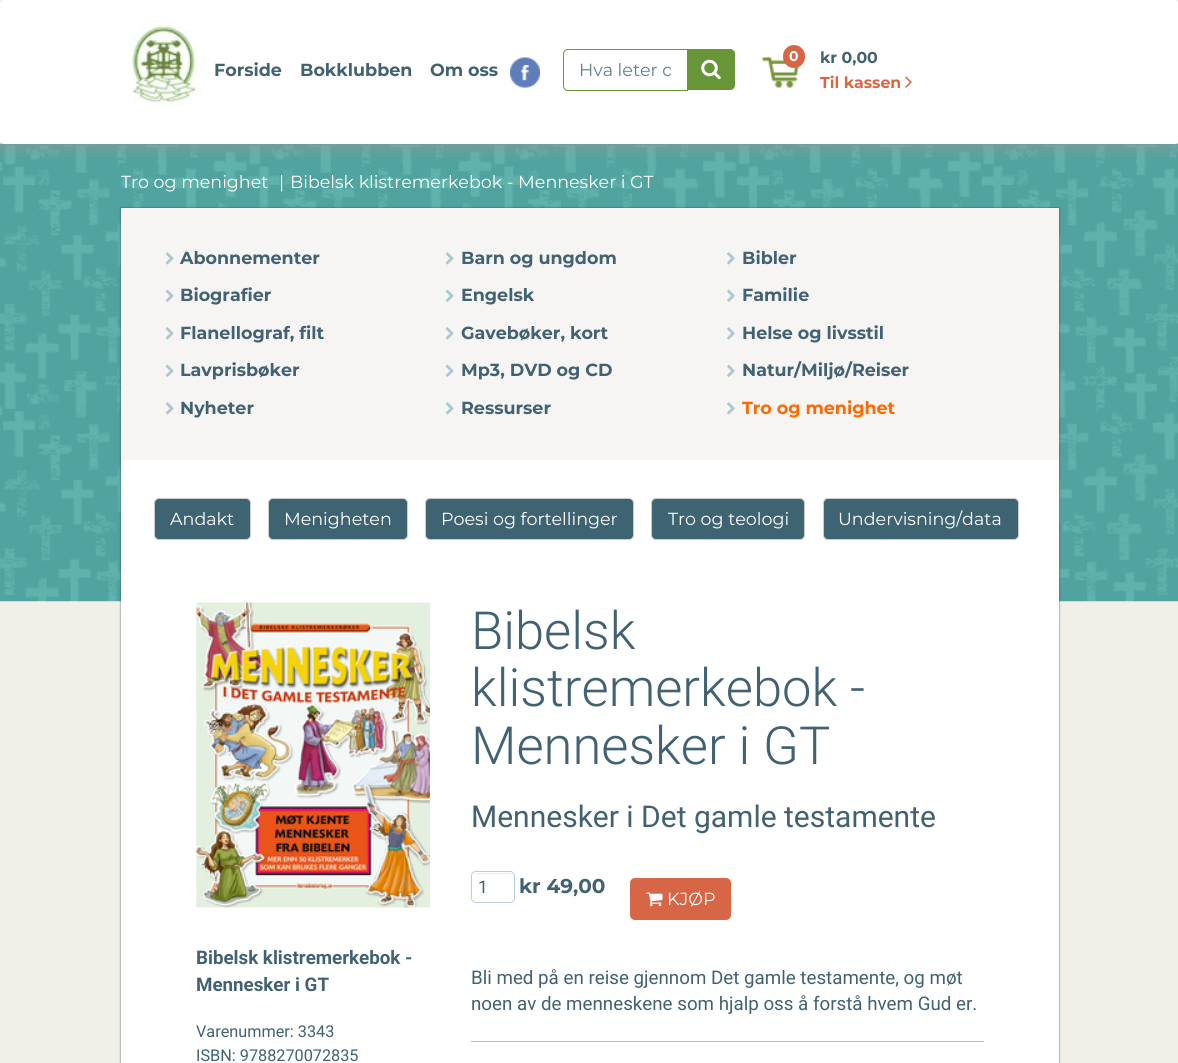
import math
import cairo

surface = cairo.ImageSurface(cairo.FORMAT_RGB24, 1178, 1063)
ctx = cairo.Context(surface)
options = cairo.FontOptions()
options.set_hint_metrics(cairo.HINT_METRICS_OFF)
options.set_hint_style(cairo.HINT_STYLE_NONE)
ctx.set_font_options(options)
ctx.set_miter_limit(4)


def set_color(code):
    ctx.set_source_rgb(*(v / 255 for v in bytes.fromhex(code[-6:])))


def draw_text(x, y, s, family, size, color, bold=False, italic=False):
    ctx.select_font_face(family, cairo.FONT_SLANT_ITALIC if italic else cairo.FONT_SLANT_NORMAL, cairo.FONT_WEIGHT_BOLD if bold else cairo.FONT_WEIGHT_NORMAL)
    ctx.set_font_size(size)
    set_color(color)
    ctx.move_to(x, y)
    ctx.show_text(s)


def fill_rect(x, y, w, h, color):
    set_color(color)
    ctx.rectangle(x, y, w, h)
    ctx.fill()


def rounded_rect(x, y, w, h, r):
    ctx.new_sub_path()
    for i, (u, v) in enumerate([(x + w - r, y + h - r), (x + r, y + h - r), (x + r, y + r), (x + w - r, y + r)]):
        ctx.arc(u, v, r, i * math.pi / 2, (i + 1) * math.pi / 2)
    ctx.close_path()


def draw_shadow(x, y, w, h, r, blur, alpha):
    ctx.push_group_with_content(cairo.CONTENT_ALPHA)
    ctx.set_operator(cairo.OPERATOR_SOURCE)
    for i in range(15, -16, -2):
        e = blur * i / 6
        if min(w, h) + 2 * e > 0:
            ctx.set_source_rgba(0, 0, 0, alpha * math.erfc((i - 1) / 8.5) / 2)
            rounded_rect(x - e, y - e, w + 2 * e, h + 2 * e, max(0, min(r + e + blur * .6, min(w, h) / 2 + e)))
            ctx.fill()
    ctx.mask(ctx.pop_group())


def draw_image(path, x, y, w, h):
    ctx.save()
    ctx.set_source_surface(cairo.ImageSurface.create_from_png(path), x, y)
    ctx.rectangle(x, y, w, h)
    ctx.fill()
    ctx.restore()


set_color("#f0f0e8")
ctx.paint()
draw_image("assets/img6.png", 0, 143, 1178, 459)
ctx.save()
ctx.set_fill_rule(cairo.FILL_RULE_EVEN_ODD)
ctx.new_path()
ctx.move_to(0, 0)
ctx.line_to(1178, 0)
ctx.line_to(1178, 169)
ctx.line_to(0, 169)
ctx.close_path()
ctx.move_to(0, 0)
ctx.line_to(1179, 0)
ctx.line_to(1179, 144)
ctx.line_to(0, 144)
ctx.close_path()
ctx.clip()
set_color("#989696")
draw_shadow(0, 6, 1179, 144, 0, 6, 0.5)
ctx.restore()
set_color("#ffffff")
rounded_rect(0, 0, 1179, 144, 5)
ctx.fill()
draw_image("assets/img1.png", 131, 26, 75, 80)
draw_text(214, 76, "Forside", "Montserrat", 17.5, "#416273", bold=True)
draw_text(300, 76, "Bokklubben", "Montserrat", 17.5, "#416273", bold=True)
draw_text(430, 76, "Om oss", "Montserrat", 17.5, "#416273", bold=True)
draw_image("assets/img2.png", 510, 57, 30, 31)
ctx.new_path()
ctx.move_to(568, 49.5)
ctx.line_to(687.5, 49.5)
ctx.line_to(687.5, 90.5)
ctx.line_to(568, 90.5)
ctx.curve_to(565.5, 90.5, 563.5, 88.5, 563.5, 86)
ctx.line_to(563.5, 54)
ctx.curve_to(563.5, 51.5, 565.5, 49.5, 568, 49.5)
ctx.close_path()
set_color("#679537")
ctx.set_line_width(1)
ctx.stroke()
ctx.save()
ctx.rectangle(579, 59, 92, 22)
ctx.clip()
draw_text(579, 76, "Hva leter d", "Montserrat", 17.5, "#627e8a")
ctx.restore()
ctx.new_path()
ctx.move_to(688, 49)
ctx.line_to(730, 49)
ctx.curve_to(733, 49, 735, 51, 735, 54)
ctx.line_to(735, 85)
ctx.curve_to(735, 88, 733, 90, 730, 90)
ctx.line_to(688, 90)
ctx.close_path()
ctx.fill()
draw_image("assets/img3.png", 701, 59, 20, 21)
draw_image("assets/img4.png", 762, 57, 37, 31)
set_color("#d76646")
rounded_rect(783, 45, 22, 23, 11)
ctx.fill()
draw_text(789, 61, "0", "Montserrat", 14, "#ffffff", bold=True)
draw_text(820, 63, "kr 0,00", "Montserrat", 15.75, "#416273", bold=True)
draw_text(820, 88, "Til kassen", "Montserrat", 15.75, "#d76646", bold=True)
draw_image("assets/img5.png", 905, 76, 7, 12)
draw_text(121, 188, "Tro og menighet", "Montserrat", 17.5, "#ffffff")
draw_text(279, 188, "|", "Montserrat", 17.5, "#ffffff")
draw_text(290, 188, "Bibelsk klistremerkebok - Mennesker i GT", "Montserrat", 17.5, "#ffffff")
set_color("#323232")
draw_shadow(121, 208, 938, 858, 0, 1, 0.75)
fill_rect(121, 460, 938, 603, "#ffffff")
fill_rect(121, 208, 938, 252, "#f6f5f3")
draw_image("assets/img7.png", 165, 252, 9, 13)
draw_text(180, 264, "Abonnementer", "Montserrat", 17.5, "#416273", bold=True)
draw_image("assets/img7.png", 445, 252, 9, 13)
draw_text(461, 264, "Barn og ungdom", "Montserrat", 17.5, "#416273", bold=True)
draw_image("assets/img8.png", 727, 252, 8, 13)
draw_text(742, 264, "Bibler", "Montserrat", 17.5, "#416273", bold=True)
draw_image("assets/img9.png", 165, 289, 9, 13)
draw_text(180, 301, "Biografier", "Montserrat", 17.5, "#416273", bold=True)
draw_image("assets/img9.png", 445, 289, 9, 13)
draw_text(461, 301, "Engelsk", "Montserrat", 17.5, "#416273", bold=True)
draw_image("assets/img10.png", 727, 289, 8, 13)
draw_text(742, 301, "Familie", "Montserrat", 17.5, "#416273", bold=True)
draw_image("assets/img7.png", 165, 327, 9, 13)
draw_text(180, 339, "Flanellograf, filt", "Montserrat", 17.5, "#416273", bold=True)
draw_image("assets/img7.png", 445, 327, 9, 13)
draw_text(461, 339, "Gavebøker, kort", "Montserrat", 17.5, "#416273", bold=True)
draw_image("assets/img8.png", 727, 327, 8, 13)
draw_text(742, 339, "Helse og livsstil", "Montserrat", 17.5, "#416273", bold=True)
draw_image("assets/img9.png", 165, 364, 9, 13)
draw_text(180, 376, "Lavprisbøker", "Montserrat", 17.5, "#416273", bold=True)
draw_image("assets/img9.png", 445, 364, 9, 13)
draw_text(461, 376, "Mp3, DVD og CD", "Montserrat", 17.5, "#416273", bold=True)
draw_image("assets/img10.png", 727, 364, 8, 13)
draw_text(742, 376, "Natur/Miljø/Reiser", "Montserrat", 17.5, "#416273", bold=True)
draw_image("assets/img7.png", 165, 402, 9, 13)
draw_text(180, 414, "Nyheter", "Montserrat", 17.5, "#416273", bold=True)
draw_image("assets/img7.png", 445, 402, 9, 13)
draw_text(461, 414, "Ressurser", "Montserrat", 17.5, "#416273", bold=True)
draw_image("assets/img8.png", 727, 402, 8, 13)
draw_text(742, 414, "Tro og menighet", "Montserrat", 17.5, "#ff6900", bold=True)
set_color("#3e6372")
rounded_rect(154.5, 498.5, 96, 41, 4.5)
ctx.fill_preserve()
set_color("#cccccc")
ctx.stroke()
draw_text(170, 525, "Andakt", "Montserrat", 17.5, "#ffffff")
set_color("#3e6372")
rounded_rect(268.5, 498.5, 139, 41, 4.5)
ctx.fill_preserve()
set_color("#cccccc")
ctx.stroke()
draw_text(284, 525, "Menigheten", "Montserrat", 17.5, "#ffffff")
set_color("#3e6372")
rounded_rect(425.5, 498.5, 208, 41, 4.5)
ctx.fill_preserve()
set_color("#cccccc")
ctx.stroke()
draw_text(441, 525, "Poesi og fortellinger", "Montserrat", 17.5, "#ffffff")
set_color("#3e6372")
rounded_rect(651.5, 498.5, 153, 41, 4.5)
ctx.fill_preserve()
set_color("#cccccc")
ctx.stroke()
draw_text(668, 525, "Tro og teologi", "Montserrat", 17.5, "#ffffff")
set_color("#3e6372")
rounded_rect(823.5, 498.5, 195, 41, 4.5)
ctx.fill_preserve()
set_color("#cccccc")
ctx.stroke()
draw_text(838, 525, "Undervisning/data", "Montserrat", 17.5, "#ffffff")
draw_image("assets/img11.png", 196, 602, 234, 306)
draw_text(196, 964, "Bibelsk klistremerkebok -", "Roboto", 18.75, "#416273", bold=True)
draw_text(196, 991, "Mennesker i GT", "Roboto", 18.75, "#416273", bold=True)
draw_text(196, 1037, "Varenummer: 3343", "Roboto", 16.25, "#416273")
draw_text(196, 1061, "ISBN: 9788270072835", "Roboto", 16.25, "#416273")
draw_text(471, 649, "Bibelsk", "Roboto Light", 52.5, "#416273")
draw_text(471, 706, "klistremerkebok -", "Roboto Light", 52.5, "#416273")
draw_text(471, 764, "Mennesker i GT", "Roboto Light", 52.5, "#416273")
draw_text(471, 827, "Mennesker i Det gamle testamente", "Roboto", 30, "#416273")
set_color("#ececec")
ctx.new_path()
ctx.move_to(476, 874)
ctx.line_to(510, 874)
ctx.curve_to(512, 874, 514, 875, 514, 878)
ctx.line_to(514, 877)
ctx.curve_to(514, 875, 512, 873, 510, 873)
ctx.line_to(477, 873)
ctx.curve_to(476, 873, 475, 874, 474, 874)
ctx.close_path()
ctx.fill()
rounded_rect(471.5, 871.5, 43, 31, 4.5)
set_color("#b9cce4")
ctx.stroke()
draw_text(478, 893, "1", "Roboto", 17.5, "#416273")
draw_text(519, 893, "kr 49,00", "Montserrat", 20, "#416273", bold=True)
set_color("#d76646")
rounded_rect(630, 878, 101, 42, 5)
ctx.fill()
draw_image("assets/img12.png", 646, 892, 17, 15)
draw_text(667, 905, "KJØP", "Montserrat", 17.5, "#ffffff")
fill_rect(471, 1041, 513, 1, "#acc5cf")
draw_text(471, 984, "Bli med på en reise gjennom Det gamle testamente, og møt", "Roboto", 18.75, "#416273")
draw_text(471, 1010, "noen av de menneskene som hjalp oss å forstå hvem Gud er.", "Roboto", 18.75, "#416273")
surface.write_to_png("output.png")
